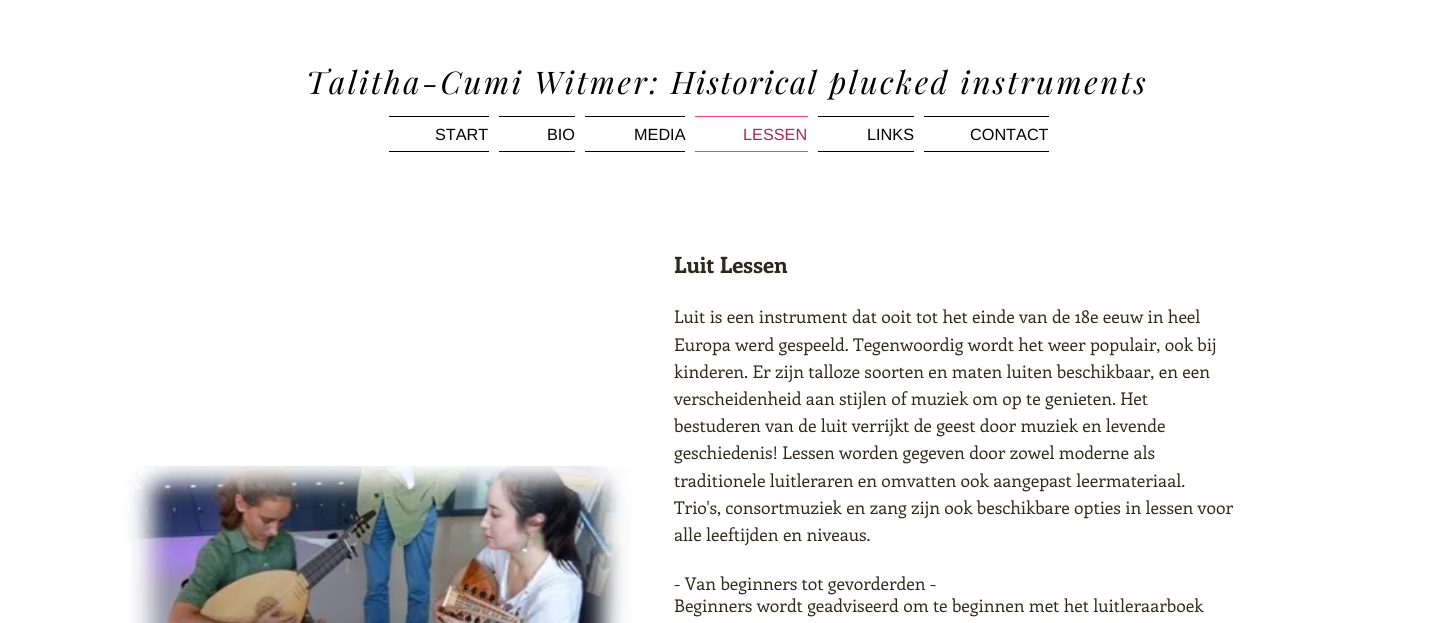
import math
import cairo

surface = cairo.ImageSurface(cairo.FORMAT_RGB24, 1437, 623)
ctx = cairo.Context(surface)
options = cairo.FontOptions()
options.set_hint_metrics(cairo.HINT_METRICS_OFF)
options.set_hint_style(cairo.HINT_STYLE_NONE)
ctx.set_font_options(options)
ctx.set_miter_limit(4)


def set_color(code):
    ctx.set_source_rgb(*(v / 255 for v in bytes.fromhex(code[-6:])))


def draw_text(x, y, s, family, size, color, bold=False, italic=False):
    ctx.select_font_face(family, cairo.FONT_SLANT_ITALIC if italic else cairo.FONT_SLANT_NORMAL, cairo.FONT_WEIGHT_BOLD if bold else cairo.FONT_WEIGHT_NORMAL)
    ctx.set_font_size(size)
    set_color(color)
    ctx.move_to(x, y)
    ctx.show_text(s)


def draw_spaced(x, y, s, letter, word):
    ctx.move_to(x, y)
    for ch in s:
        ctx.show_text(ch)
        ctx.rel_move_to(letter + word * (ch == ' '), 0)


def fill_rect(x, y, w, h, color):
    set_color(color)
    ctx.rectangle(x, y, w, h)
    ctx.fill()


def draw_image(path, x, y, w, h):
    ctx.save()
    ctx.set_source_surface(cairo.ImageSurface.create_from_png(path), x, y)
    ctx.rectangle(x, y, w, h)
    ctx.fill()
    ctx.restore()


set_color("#ffffff")
ctx.paint()
ctx.select_font_face("Playfair Display", cairo.FONT_SLANT_ITALIC)
ctx.set_font_size(31.25)
set_color("#000000")
draw_spaced(306, 94, "Talitha-Cumi Witmer:", 2.5, 0)
draw_spaced(671, 94, "Historical", 1.5, 0)
draw_spaced(829, 94, "plucked instruments", 2.5, 0)
fill_rect(389, 116, 100, 1, "#000000")
fill_rect(389, 151, 100, 1, "#000000")
draw_text(435, 140, "START", "Liberation Sans", 16.25, "#000000")
fill_rect(499, 116, 76, 1, "#000000")
fill_rect(499, 151, 76, 1, "#000000")
draw_text(547, 140, "BIO", "Liberation Sans", 16.25, "#000000")
fill_rect(585, 116, 100, 1, "#000000")
fill_rect(585, 151, 100, 1, "#000000")
draw_text(634, 140, "MEDIA", "Liberation Sans", 16.25, "#000000")
fill_rect(695, 116, 113, 1, "#ff3d81")
fill_rect(695, 151, 113, 1, "#ff3d81")
draw_text(743, 140, "LESSEN", "Liberation Sans", 16.25, "#a92856")
fill_rect(818, 116, 96, 1, "#000000")
fill_rect(818, 151, 96, 1, "#000000")
draw_text(867, 140, "LINKS", "Liberation Sans", 16.25, "#000000")
fill_rect(924, 116, 125, 1, "#000000")
fill_rect(924, 151, 125, 1, "#000000")
draw_text(970, 140, "CONTACT", "Liberation Sans", 16.25, "#000000")
draw_image("assets/img1.png", 120, 466, 516, 157)
draw_text(674, 273, "Luit Lessen", "Enriqueta", 22.5, "#2d271d", bold=True)
draw_text(674, 323, "Luit is een instrument dat ooit tot het einde van de 18e eeuw in heel", "Enriqueta", 17.5, "#2d271d")
draw_text(674, 351, "Europa werd gespeeld. Tegenwoordig wordt het weer populair, ook bij", "Enriqueta", 17.5, "#2d271d")
draw_text(674, 378, "kinderen. Er zijn talloze soorten en maten luiten beschikbaar, en een", "Enriqueta", 17.5, "#2d271d")
draw_text(674, 405, "verscheidenheid aan stijlen of muziek om op te genieten. Het", "Enriqueta", 17.5, "#2d271d")
draw_text(674, 432, "bestuderen van de luit verrijkt de geest door muziek en levende", "Enriqueta", 17.5, "#2d271d")
draw_text(674, 459, "geschiedenis! Lessen worden gegeven door zowel moderne als", "Enriqueta", 17.5, "#2d271d")
draw_text(674, 487, "traditionele luitleraren en omvatten ook aangepast leermateriaal.", "Enriqueta", 17.5, "#2d271d")
draw_text(674, 514, "Trio's, consortmuziek en zang zijn ook beschikbare opties in lessen voor", "Enriqueta", 17.5, "#2d271d")
draw_text(674, 541, "alle leeftijden en niveaus.", "Enriqueta", 17.5, "#2d271d")
draw_text(674, 590, "- Van beginners tot gevorderden -", "Enriqueta", 17.5, "#2d271d")
draw_text(674, 612, "Beginners wordt geadviseerd om te beginnen met het luitleraarboek", "Enriqueta", 17.5, "#2d271d")
surface.write_to_png("output.png")
